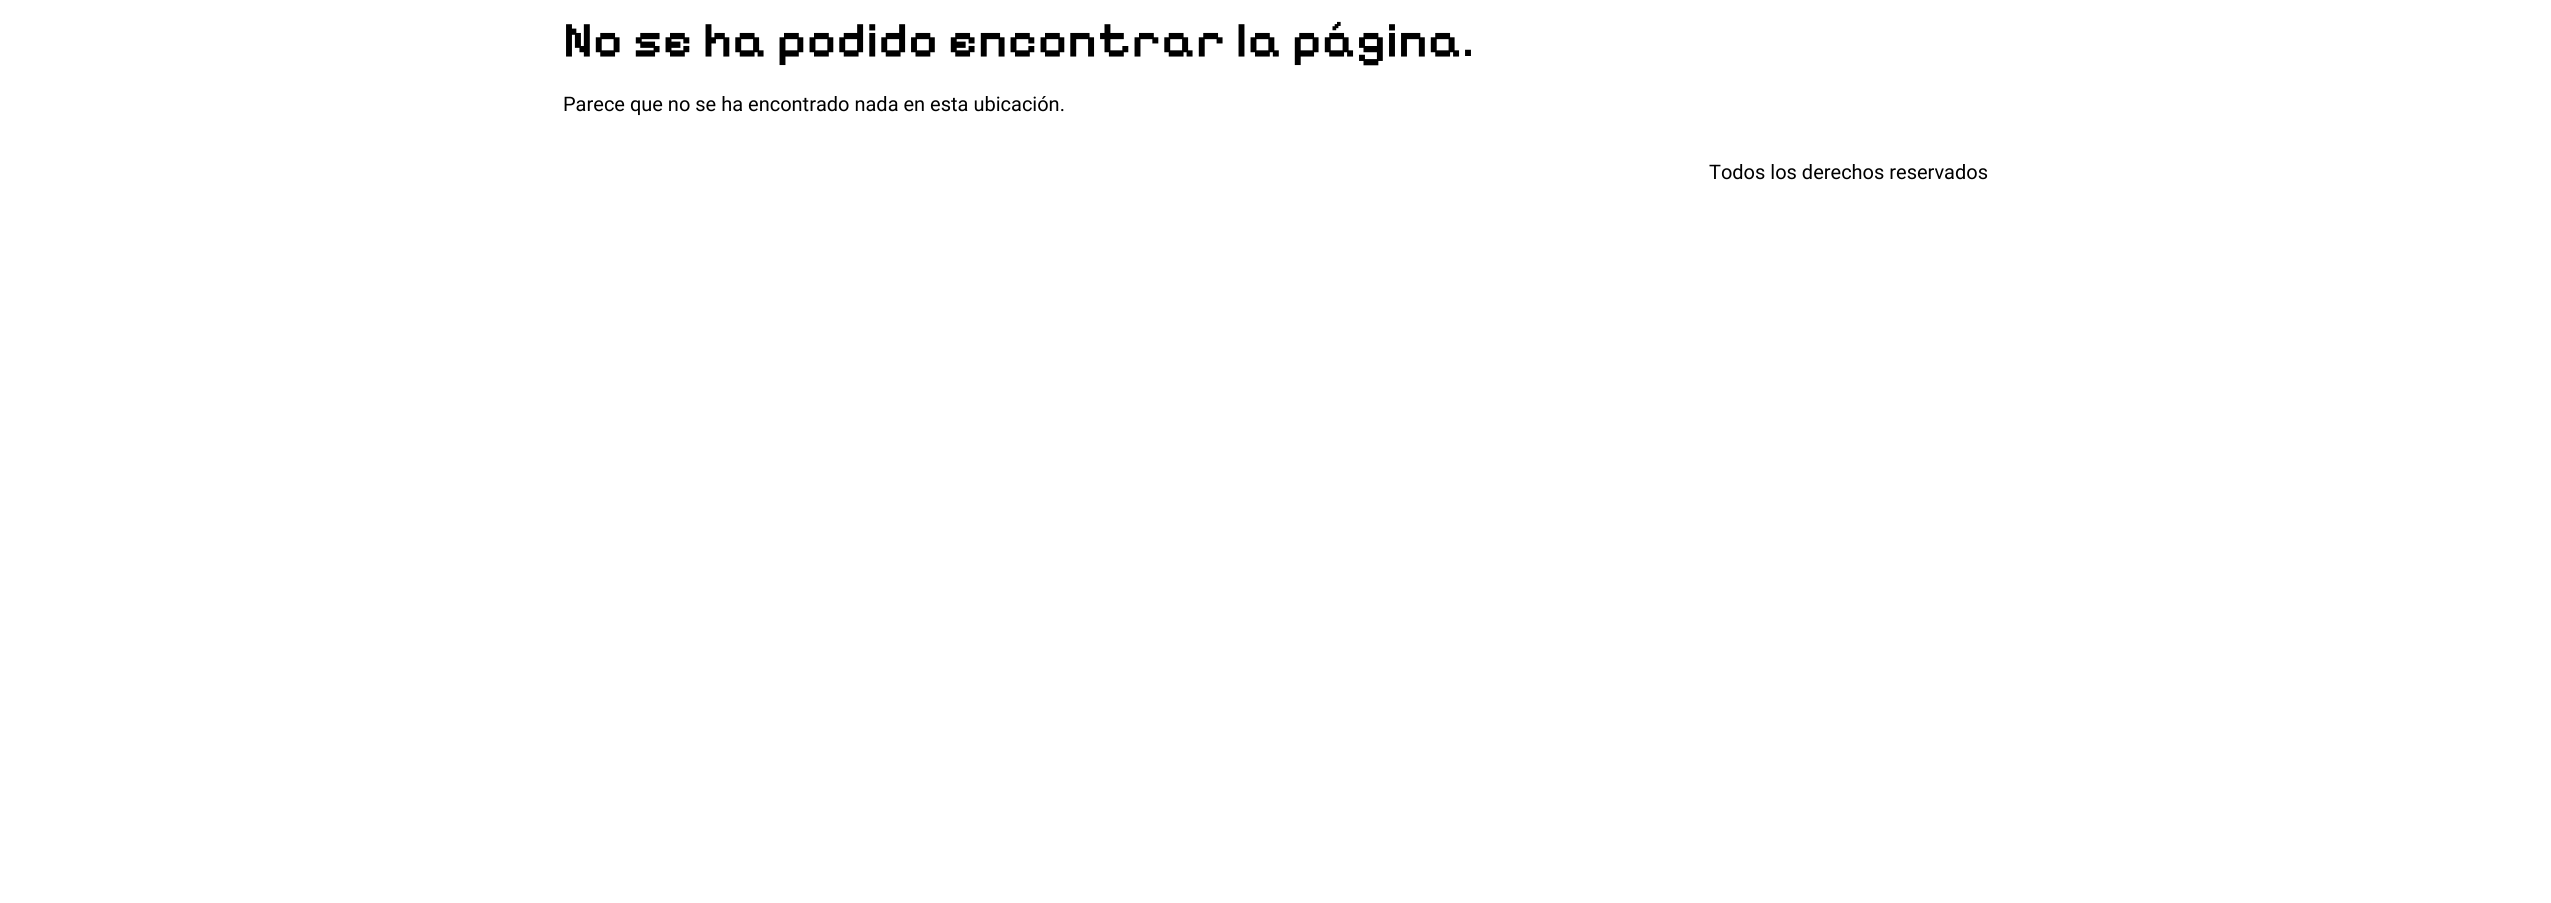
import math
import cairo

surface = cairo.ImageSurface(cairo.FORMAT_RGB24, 2551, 903)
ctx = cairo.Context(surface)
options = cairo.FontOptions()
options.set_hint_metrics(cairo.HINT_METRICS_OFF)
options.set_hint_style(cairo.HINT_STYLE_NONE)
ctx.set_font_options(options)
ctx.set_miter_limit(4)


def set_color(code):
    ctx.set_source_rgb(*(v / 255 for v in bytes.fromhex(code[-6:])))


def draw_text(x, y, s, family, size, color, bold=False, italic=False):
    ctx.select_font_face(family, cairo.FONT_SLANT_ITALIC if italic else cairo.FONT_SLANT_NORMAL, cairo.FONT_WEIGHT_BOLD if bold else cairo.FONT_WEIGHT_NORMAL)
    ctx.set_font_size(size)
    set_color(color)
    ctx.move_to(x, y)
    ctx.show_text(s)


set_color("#ffffff")
ctx.paint()
draw_text(563, 56, "No se ha podido encontrar la página.", "Pixelify Sans SemiBold", 50, "#000000")
draw_text(563, 111, "Parece que no se ha encontrado nada en esta ubicación.", "Roboto", 20, "#000000")
draw_text(1709, 179, "Todos los derechos reservados", "Roboto", 20, "#000000")
surface.write_to_png("output.png")
